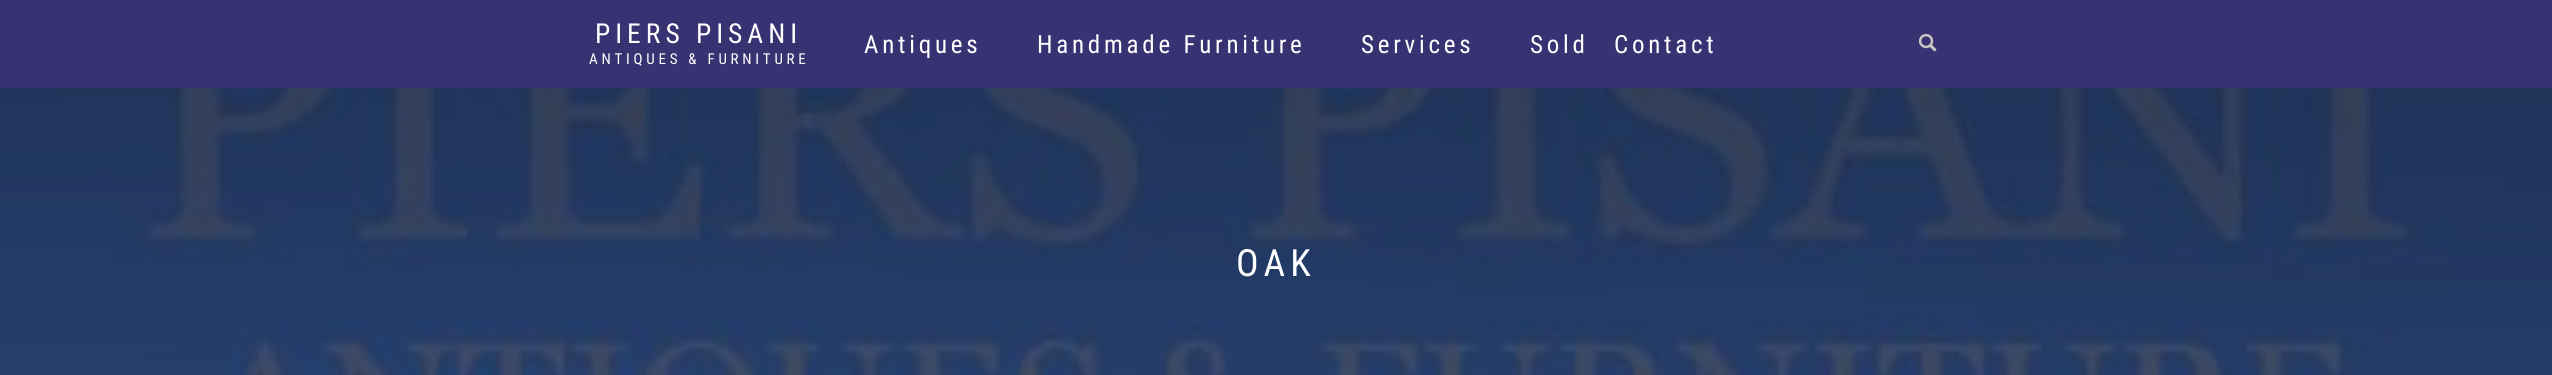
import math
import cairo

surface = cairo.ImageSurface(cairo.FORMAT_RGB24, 2552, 375)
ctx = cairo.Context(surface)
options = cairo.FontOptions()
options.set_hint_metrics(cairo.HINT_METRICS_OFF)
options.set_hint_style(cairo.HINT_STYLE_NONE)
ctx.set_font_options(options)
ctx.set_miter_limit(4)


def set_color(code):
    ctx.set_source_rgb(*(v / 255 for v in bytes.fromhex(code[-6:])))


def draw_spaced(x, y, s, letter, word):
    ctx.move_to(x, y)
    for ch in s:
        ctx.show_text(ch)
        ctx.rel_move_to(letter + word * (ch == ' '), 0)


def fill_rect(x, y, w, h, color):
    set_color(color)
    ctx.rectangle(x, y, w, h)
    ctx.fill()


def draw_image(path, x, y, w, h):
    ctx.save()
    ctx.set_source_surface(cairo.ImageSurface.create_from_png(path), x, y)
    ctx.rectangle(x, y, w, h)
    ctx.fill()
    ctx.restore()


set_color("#ffffff")
ctx.paint()
fill_rect(0, 0, 2552, 88, "#383273")
ctx.select_font_face("Roboto Condensed")
ctx.set_font_size(27.5)
set_color("#ffffff")
draw_spaced(595, 43, "PIERS PISANI", 5, 0)
ctx.set_font_size(15)
draw_spaced(589, 64, "ANTIQUES & FURNITURE", 3.75, 0)
ctx.set_font_size(25)
draw_spaced(864, 53, "Antiques", 3.75, 0)
draw_spaced(1037, 53, "Handmade Furniture", 3.75, 0)
draw_spaced(1361, 53, "Services", 3.75, 0)
draw_spaced(1530, 53, "Sold", 3.75, 0)
draw_spaced(1614, 53, "Contact", 3.75, 0)
draw_image("assets/img1.png", 1918, 33, 19, 19)
draw_image("assets/img2.png", 0, 88, 2552, 287)
ctx.set_font_size(37.5)
draw_spaced(1236, 276, "OAK", 5, 0)
surface.write_to_png("output.png")
